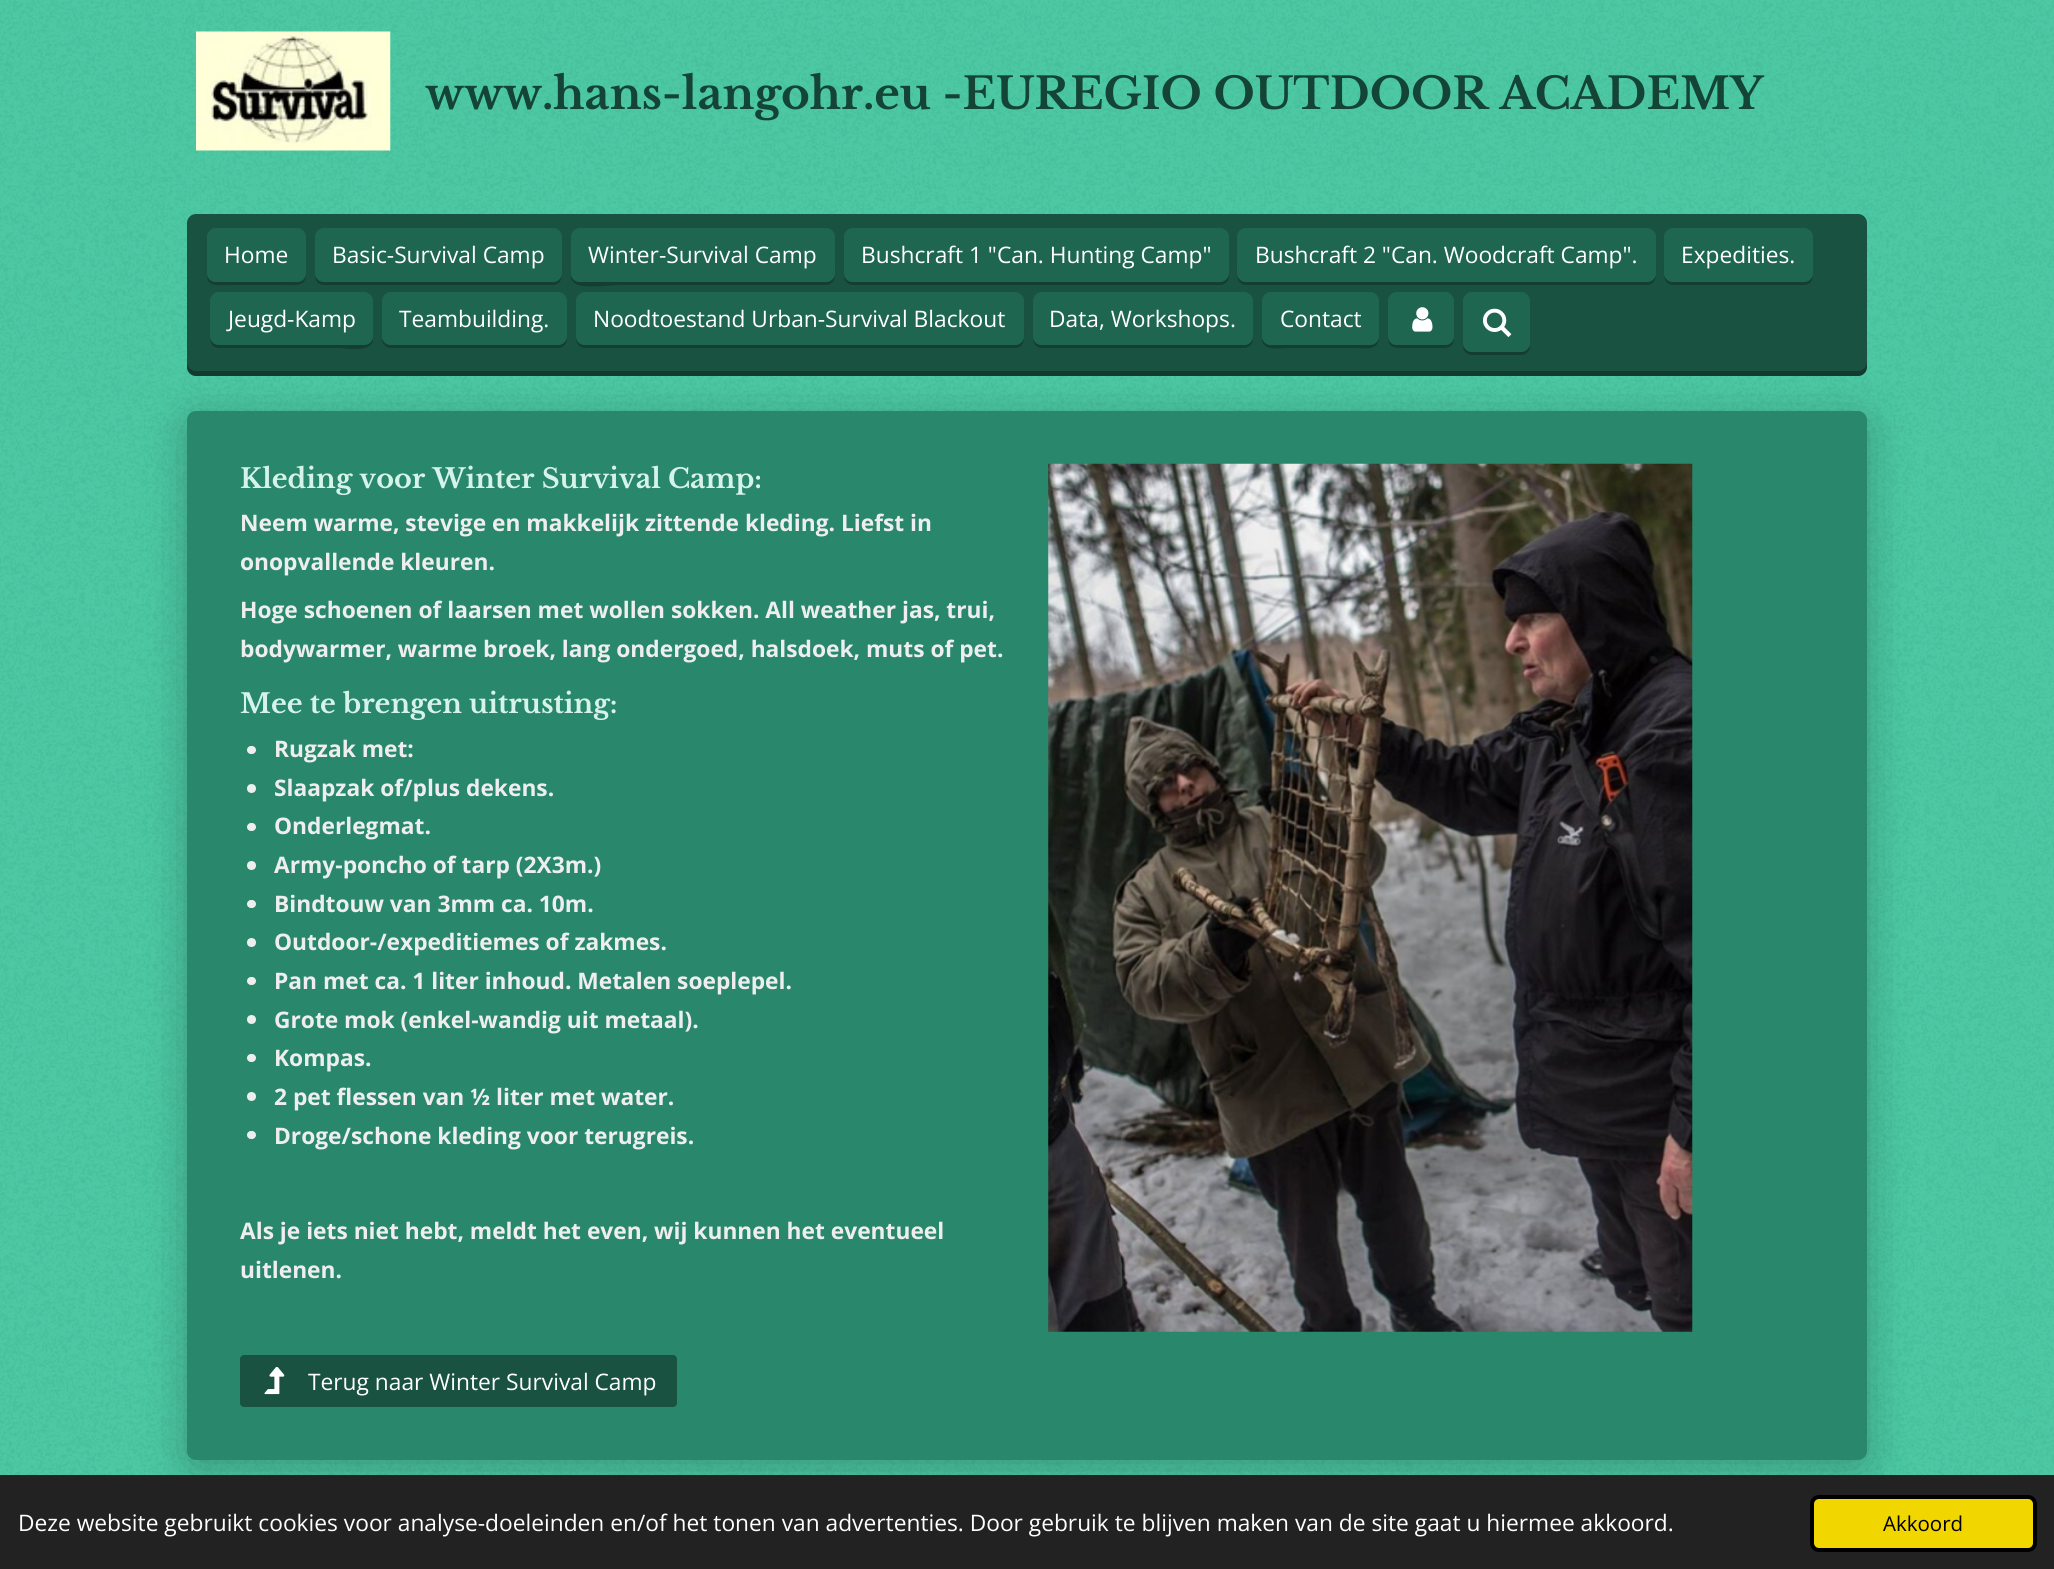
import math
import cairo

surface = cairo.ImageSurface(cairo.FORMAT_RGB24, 2054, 1569)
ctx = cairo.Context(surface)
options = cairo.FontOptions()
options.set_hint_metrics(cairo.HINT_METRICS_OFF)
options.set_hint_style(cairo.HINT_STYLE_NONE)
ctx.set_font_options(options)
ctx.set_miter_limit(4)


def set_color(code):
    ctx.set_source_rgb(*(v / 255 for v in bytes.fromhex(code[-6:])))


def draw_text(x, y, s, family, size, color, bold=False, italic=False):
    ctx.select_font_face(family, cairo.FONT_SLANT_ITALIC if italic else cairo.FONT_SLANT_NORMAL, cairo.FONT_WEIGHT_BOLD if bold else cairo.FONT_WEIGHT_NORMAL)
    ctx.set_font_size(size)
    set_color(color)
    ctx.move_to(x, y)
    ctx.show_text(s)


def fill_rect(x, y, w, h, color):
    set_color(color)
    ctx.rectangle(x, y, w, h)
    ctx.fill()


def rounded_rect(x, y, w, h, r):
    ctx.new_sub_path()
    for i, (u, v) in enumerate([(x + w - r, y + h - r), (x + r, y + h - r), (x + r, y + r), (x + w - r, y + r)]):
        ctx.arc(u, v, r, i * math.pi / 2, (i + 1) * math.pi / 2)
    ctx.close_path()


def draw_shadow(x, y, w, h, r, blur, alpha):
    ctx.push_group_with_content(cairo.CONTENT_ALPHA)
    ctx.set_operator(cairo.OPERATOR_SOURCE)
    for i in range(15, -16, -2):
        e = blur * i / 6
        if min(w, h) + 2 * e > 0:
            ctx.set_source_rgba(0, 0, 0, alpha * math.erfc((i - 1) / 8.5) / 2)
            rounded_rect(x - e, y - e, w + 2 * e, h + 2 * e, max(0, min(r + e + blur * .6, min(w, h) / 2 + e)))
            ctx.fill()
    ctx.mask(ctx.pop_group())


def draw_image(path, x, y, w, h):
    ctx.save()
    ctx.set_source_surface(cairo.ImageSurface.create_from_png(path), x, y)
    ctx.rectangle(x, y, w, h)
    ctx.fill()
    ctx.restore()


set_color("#4cc9a4")
ctx.paint()
draw_image("assets/img1.png", 0, 0, 2054, 1475)
draw_image("assets/img2.png", 196, 31, 195, 120)
draw_text(425, 109, "www.hans-langohr.eu -EUREGIO OUTDOOR ACADEMY", "Libre Baskerville", 43.75, "#144436", bold=True)
set_color("#195241")
rounded_rect(187, 214, 1680, 162, 9)
ctx.fill()
ctx.set_source_rgba(0, 0, 0, 0.3)
ctx.new_path()
ctx.move_to(187, 362)
ctx.line_to(187, 367)
ctx.curve_to(187, 372, 191, 376, 196, 376)
ctx.line_to(1858, 376)
ctx.curve_to(1863, 376, 1867, 372, 1867, 367)
ctx.line_to(1867, 362)
ctx.curve_to(1867, 367, 1863, 371, 1858, 371)
ctx.line_to(196, 371)
ctx.curve_to(191, 371, 187, 367, 187, 362)
ctx.close_path()
ctx.fill()
set_color("#133e31")
ctx.new_path()
ctx.move_to(207, 276)
ctx.curve_to(207, 288, 222, 285, 230, 285)
ctx.line_to(284, 285)
ctx.curve_to(292, 285, 306, 288, 306, 275)
ctx.curve_to(305, 279, 302, 282, 298, 282)
ctx.line_to(215, 282)
ctx.curve_to(211, 282, 208, 279, 207, 276)
ctx.close_path()
ctx.fill()
set_color("#1f6650")
rounded_rect(207, 228, 99, 54, 9)
ctx.fill()
draw_text(224, 263, "Home", "Open Sans", 22.75, "#ffffff")
set_color("#133e31")
ctx.new_path()
ctx.move_to(315, 273)
ctx.curve_to(315, 279, 317, 285, 324, 285)
ctx.line_to(553, 285)
ctx.curve_to(564, 285, 562, 271, 562, 264)
ctx.line_to(562, 238)
ctx.line_to(562, 273)
ctx.curve_to(562, 278, 558, 282, 553, 282)
ctx.line_to(324, 282)
ctx.curve_to(319, 282, 315, 278, 315, 273)
ctx.close_path()
ctx.fill()
set_color("#1f6650")
rounded_rect(315, 228, 247, 54, 9)
ctx.fill()
draw_text(332, 263, "Basic-Survival Camp", "Open Sans", 22.75, "#ffffff")
set_color("#133e31")
ctx.new_path()
ctx.move_to(571, 276)
ctx.curve_to(571, 292, 603, 285, 621, 285)
ctx.line_to(826, 285)
ctx.curve_to(837, 285, 835, 271, 835, 264)
ctx.line_to(835, 238)
ctx.line_to(835, 273)
ctx.curve_to(835, 278, 831, 282, 826, 282)
ctx.line_to(579, 282)
ctx.curve_to(575, 282, 572, 279, 571, 276)
ctx.close_path()
ctx.fill()
set_color("#1f6650")
rounded_rect(571, 228, 264, 54, 9)
ctx.fill()
draw_text(588, 263, "Winter-Survival Camp", "Open Sans", 22.75, "#ffffff")
set_color("#133e31")
ctx.new_path()
ctx.move_to(844, 276)
ctx.curve_to(844, 281, 848, 285, 853, 285)
ctx.line_to(1220, 285)
ctx.curve_to(1225, 285, 1229, 281, 1229, 276)
ctx.line_to(1229, 240)
ctx.line_to(1228, 237)
ctx.line_to(1228, 273)
ctx.curve_to(1228, 278, 1225, 282, 1220, 282)
ctx.line_to(852, 282)
ctx.curve_to(848, 282, 845, 279, 844, 276)
ctx.close_path()
ctx.fill()
set_color("#1f6650")
rounded_rect(844, 228, 385, 54, 9)
ctx.fill()
draw_text(861, 263, "Bushcraft 1 \"Can. Hunting Camp\"", "Open Sans", 22.75, "#ffffff")
set_color("#133e31")
ctx.new_path()
ctx.move_to(1237, 238)
ctx.line_to(1237, 264)
ctx.curve_to(1237, 271, 1235, 285, 1246, 285)
ctx.line_to(1647, 285)
ctx.curve_to(1658, 285, 1656, 271, 1656, 264)
ctx.line_to(1656, 237)
ctx.line_to(1656, 273)
ctx.curve_to(1656, 278, 1652, 282, 1647, 282)
ctx.line_to(1246, 282)
ctx.curve_to(1241, 282, 1237, 278, 1237, 273)
ctx.close_path()
ctx.fill()
set_color("#1f6650")
rounded_rect(1237, 228, 419, 54, 9)
ctx.fill()
draw_text(1255, 263, "Bushcraft 2 \"Can. Woodcraft Camp\".", "Open Sans", 22.75, "#ffffff")
set_color("#133e31")
ctx.new_path()
ctx.move_to(1664, 238)
ctx.line_to(1664, 264)
ctx.curve_to(1664, 271, 1662, 285, 1673, 285)
ctx.line_to(1804, 285)
ctx.curve_to(1811, 285, 1813, 279, 1813, 273)
ctx.curve_to(1813, 278, 1809, 282, 1804, 282)
ctx.line_to(1673, 282)
ctx.curve_to(1668, 282, 1664, 278, 1664, 273)
ctx.close_path()
ctx.fill()
set_color("#1f6650")
rounded_rect(1664, 228, 149, 54, 9)
ctx.fill()
draw_text(1681, 263, "Expedities.", "Open Sans", 22.75, "#ffffff")
set_color("#133e31")
ctx.new_path()
ctx.move_to(210, 336)
ctx.curve_to(210, 342, 212, 348, 219, 348)
ctx.line_to(340, 348)
ctx.curve_to(344, 348, 370, 353, 373, 341)
ctx.line_to(373, 303)
ctx.line_to(373, 336)
ctx.curve_to(373, 341, 369, 345, 364, 345)
ctx.line_to(219, 345)
ctx.curve_to(214, 345, 210, 341, 210, 336)
ctx.close_path()
ctx.fill()
set_color("#1f6650")
rounded_rect(210, 292, 163, 53, 9)
ctx.fill()
draw_text(228, 327, "Jeugd-Kamp", "Open Sans", 22.75, "#ffffff")
set_color("#133e31")
ctx.new_path()
ctx.move_to(382, 339)
ctx.curve_to(382, 344, 386, 348, 391, 348)
ctx.line_to(558, 348)
ctx.curve_to(563, 348, 567, 344, 567, 339)
ctx.line_to(567, 336)
ctx.curve_to(567, 341, 563, 345, 558, 345)
ctx.line_to(390, 345)
ctx.curve_to(386, 345, 383, 342, 382, 339)
ctx.close_path()
ctx.fill()
set_color("#1f6650")
rounded_rect(382, 292, 185, 53, 9)
ctx.fill()
draw_text(399, 327, "Teambuilding.", "Open Sans", 22.75, "#ffffff")
set_color("#133e31")
ctx.new_path()
ctx.move_to(576, 338)
ctx.curve_to(576, 343, 579, 348, 585, 348)
ctx.line_to(1015, 348)
ctx.curve_to(1026, 348, 1024, 335, 1024, 328)
ctx.line_to(1024, 303)
ctx.line_to(1024, 336)
ctx.curve_to(1024, 341, 1020, 345, 1015, 345)
ctx.line_to(584, 345)
ctx.curve_to(580, 345, 577, 342, 576, 338)
ctx.close_path()
ctx.fill()
set_color("#1f6650")
rounded_rect(576, 292, 448, 53, 9)
ctx.fill()
draw_text(593, 327, "Noodtoestand Urban-Survival Blackout", "Open Sans", 22.75, "#ffffff")
set_color("#133e31")
ctx.new_path()
ctx.move_to(1033, 339)
ctx.curve_to(1033, 344, 1037, 348, 1042, 348)
ctx.line_to(1244, 348)
ctx.curve_to(1249, 348, 1253, 344, 1253, 339)
ctx.line_to(1253, 336)
ctx.curve_to(1253, 341, 1249, 345, 1244, 345)
ctx.line_to(1041, 345)
ctx.curve_to(1037, 345, 1034, 342, 1033, 339)
ctx.close_path()
ctx.fill()
set_color("#1f6650")
rounded_rect(1033, 292, 220, 53, 9)
ctx.fill()
draw_text(1049, 327, "Data, Workshops.", "Open Sans", 22.75, "#ffffff")
set_color("#133e31")
ctx.new_path()
ctx.move_to(1262, 338)
ctx.curve_to(1262, 352, 1279, 348, 1288, 348)
ctx.line_to(1354, 348)
ctx.curve_to(1366, 348, 1379, 352, 1379, 336)
ctx.curve_to(1379, 341, 1375, 345, 1370, 345)
ctx.line_to(1270, 345)
ctx.curve_to(1266, 345, 1263, 342, 1262, 338)
ctx.close_path()
ctx.fill()
set_color("#1f6650")
rounded_rect(1262, 292, 117, 53, 9)
ctx.fill()
draw_text(1280, 327, "Contact", "Open Sans", 22.75, "#ffffff")
set_color("#133e31")
ctx.new_path()
ctx.move_to(1388, 338)
ctx.curve_to(1388, 349, 1397, 348, 1405, 348)
ctx.line_to(1437, 348)
ctx.curve_to(1445, 348, 1454, 349, 1454, 338)
ctx.curve_to(1453, 342, 1450, 345, 1446, 345)
ctx.line_to(1396, 345)
ctx.curve_to(1392, 345, 1389, 342, 1388, 338)
ctx.close_path()
ctx.fill()
set_color("#1f6650")
rounded_rect(1388, 292, 66, 53, 9)
ctx.fill()
draw_image("assets/img3.png", 1412, 307, 21, 25)
set_color("#000000")
draw_shadow(187, 420, 1680, 1048, 9, 22, 0.25)
set_color("#133d31")
ctx.new_path()
ctx.move_to(1463, 343)
ctx.line_to(1463, 346)
ctx.curve_to(1463, 351, 1467, 355, 1472, 355)
ctx.line_to(1521, 355)
ctx.curve_to(1526, 355, 1530, 351, 1530, 346)
ctx.line_to(1530, 305)
ctx.line_to(1530, 302)
ctx.line_to(1530, 343)
ctx.curve_to(1530, 348, 1526, 352, 1521, 352)
ctx.line_to(1472, 352)
ctx.curve_to(1467, 352, 1463, 348, 1463, 343)
ctx.close_path()
ctx.fill()
set_color("#1f6650")
rounded_rect(1463, 292, 67, 60, 9)
ctx.fill()
draw_image("assets/img4.png", 1483, 308, 29, 30)
set_color("#29876b")
rounded_rect(187, 411, 1680, 1049, 9)
ctx.fill()
draw_text(240, 488, "Kleding voor Winter Survival Camp:", "Libre Baskerville", 27, "#d6f3ea", bold=True)
draw_text(240, 531, "Neem warme, stevige en makkelijk zittende kleding. Liefst in", "Open Sans", 22.75, "#eeeeee", bold=True)
draw_text(240, 570, "onopvallende kleuren.", "Open Sans", 22.75, "#eeeeee", bold=True)
draw_text(240, 618, "Hoge schoenen of laarsen met wollen sokken. All weather jas, trui,", "Open Sans", 22.75, "#eeeeee", bold=True)
draw_text(240, 657, "bodywarmer, warme broek, lang ondergoed, halsdoek, muts of pet.", "Open Sans", 22.75, "#eeeeee", bold=True)
draw_text(240, 713, "Mee te brengen uitrusting:", "Libre Baskerville", 27, "#d6f3ea", bold=True)
set_color("#eeeeee")
rounded_rect(247, 746, 9, 8, 4)
ctx.fill()
draw_text(274, 757, "Rugzak met:", "Open Sans", 22.75, "#eeeeee", bold=True)
ctx.new_path()
ctx.arc(251.5, 788.5, 4.5, 0, 2 * math.pi)
ctx.fill()
draw_text(274, 796, "Slaapzak of/plus dekens.", "Open Sans", 22.75, "#eeeeee", bold=True)
rounded_rect(247, 823, 9, 8, 4)
ctx.fill()
draw_text(274, 834, "Onderlegmat.", "Open Sans", 22.75, "#eeeeee", bold=True)
ctx.new_path()
ctx.arc(251.5, 865.5, 4.5, 0, 2 * math.pi)
ctx.fill()
draw_text(274, 873, "Army-poncho of tarp (2X3m.)", "Open Sans", 22.75, "#eeeeee", bold=True)
rounded_rect(247, 900, 9, 8, 4)
ctx.fill()
draw_text(274, 912, "Bindtouw van 3mm ca. 10m.", "Open Sans", 22.75, "#eeeeee", bold=True)
ctx.new_path()
ctx.arc(251.5, 942.5, 4.5, 0, 2 * math.pi)
ctx.fill()
draw_text(274, 950, "Outdoor-/expeditiemes of zakmes.", "Open Sans", 22.75, "#eeeeee", bold=True)
rounded_rect(247, 977, 9, 8, 4)
ctx.fill()
draw_text(274, 989, "Pan met ca. 1 liter inhoud. Metalen soeplepel.", "Open Sans", 22.75, "#eeeeee", bold=True)
ctx.new_path()
ctx.arc(251.5, 1019.5, 4.5, 0, 2 * math.pi)
ctx.fill()
draw_text(274, 1028, "Grote mok (enkel-wandig uit metaal).", "Open Sans", 22.75, "#eeeeee", bold=True)
rounded_rect(247, 1054, 9, 8, 4)
ctx.fill()
draw_text(274, 1066, "Kompas.", "Open Sans", 22.75, "#eeeeee", bold=True)
ctx.new_path()
ctx.arc(251.5, 1096.5, 4.5, 0, 2 * math.pi)
ctx.fill()
draw_text(274, 1105, "2 pet flessen van ½ liter met water.", "Open Sans", 22.75, "#eeeeee", bold=True)
rounded_rect(247, 1131, 9, 8, 4)
ctx.fill()
draw_text(274, 1144, "Droge/schone kleding voor terugreis.", "Open Sans", 22.75, "#eeeeee", bold=True)
draw_text(240, 1239, "Als je iets niet hebt, meldt het even, wij kunnen het eventueel", "Open Sans", 22.75, "#eeeeee", bold=True)
draw_text(240, 1278, "uitlenen.", "Open Sans", 22.75, "#eeeeee", bold=True)
draw_image("assets/img5.png", 1048, 463, 645, 869)
set_color("#195241")
rounded_rect(240, 1355, 437, 52, 4)
ctx.fill()
draw_image("assets/img6.png", 264, 1367, 21, 28)
draw_text(308, 1390, "Terug naar Winter Survival Camp", "Open Sans", 22.75, "#ffffff")
fill_rect(0, 1475, 2054, 94, "#222222")
draw_text(18, 1531, "Deze website gebruikt cookies voor analyse-doeleinden en/of het tonen van advertenties. Door gebruik te blijven maken van de site gaat u hiermee akkoord.", "Open Sans", 22.75, "#ffffff")
set_color("#f1d600")
rounded_rect(1812, 1497, 223, 53, 7)
ctx.fill_preserve()
set_color("#000000")
ctx.set_line_width(4)
ctx.stroke()
draw_text(1883, 1531, "Akkoord", "Open Sans", 20.5, "#000000")
surface.write_to_png("output.png")
